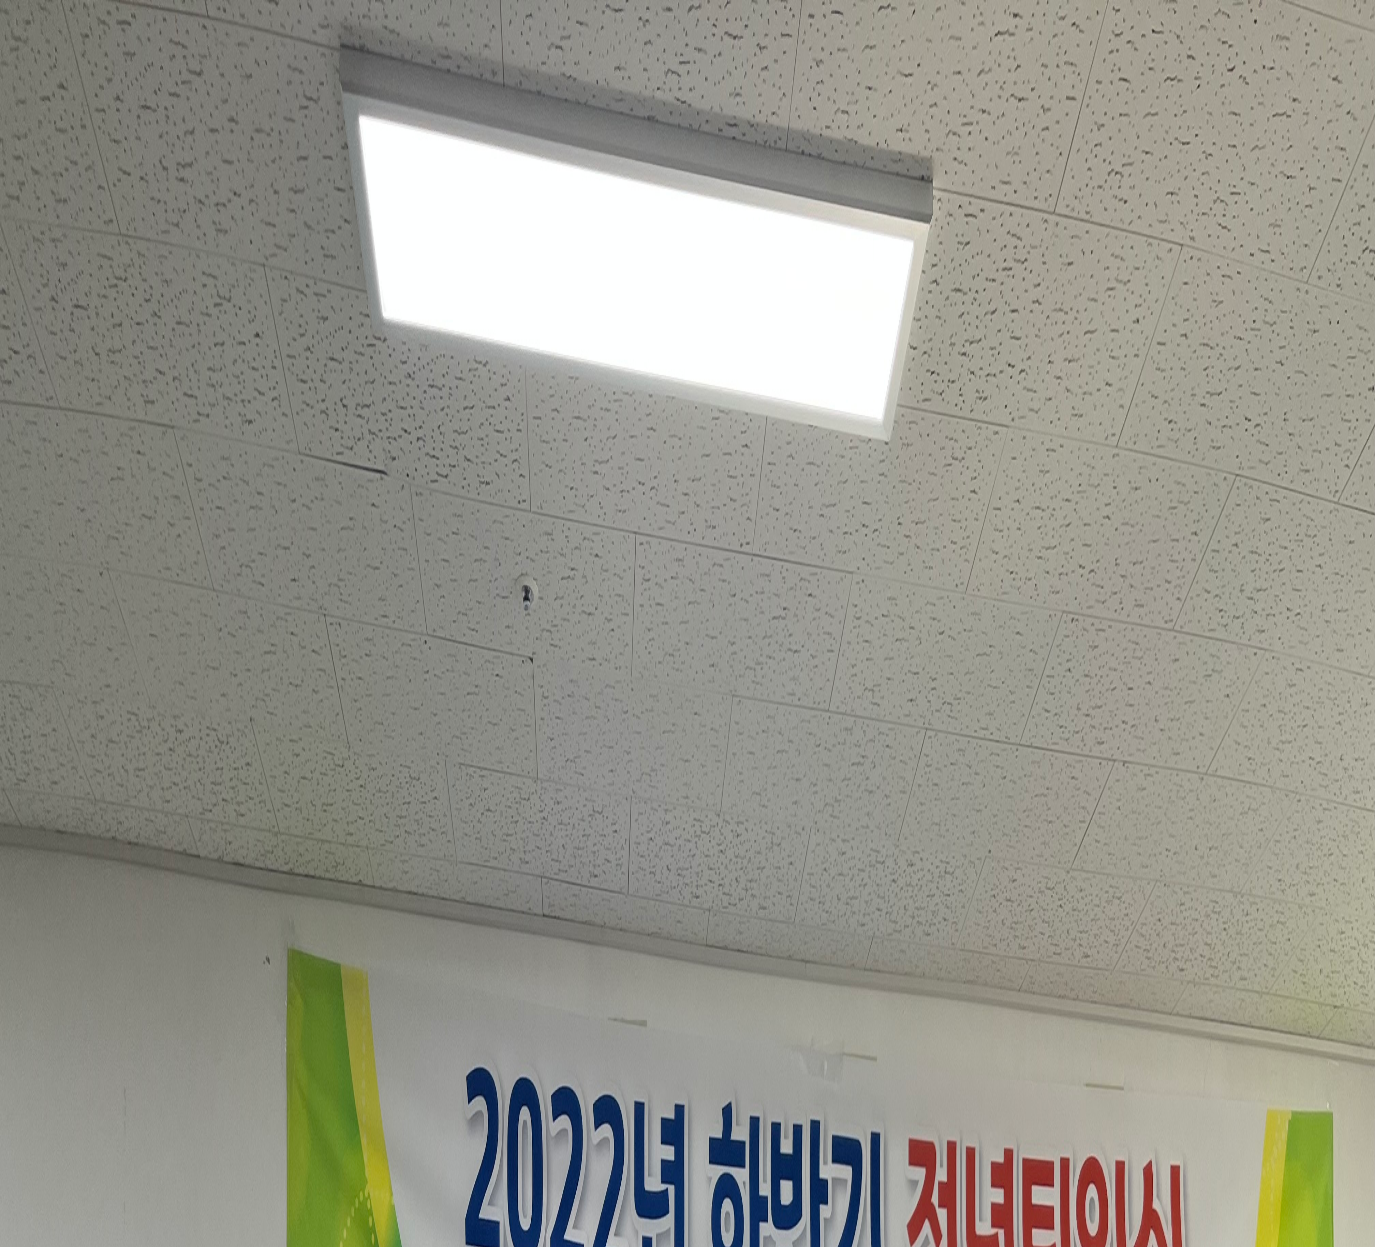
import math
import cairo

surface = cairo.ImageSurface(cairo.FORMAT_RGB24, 1375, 1247)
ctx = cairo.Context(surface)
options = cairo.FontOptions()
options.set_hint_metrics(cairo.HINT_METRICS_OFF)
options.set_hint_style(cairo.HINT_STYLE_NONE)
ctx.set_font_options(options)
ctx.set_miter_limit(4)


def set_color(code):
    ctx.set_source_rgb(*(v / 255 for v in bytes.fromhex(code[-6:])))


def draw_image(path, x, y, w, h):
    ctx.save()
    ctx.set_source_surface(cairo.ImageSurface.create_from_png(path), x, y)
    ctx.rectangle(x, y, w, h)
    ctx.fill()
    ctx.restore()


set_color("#ffffff")
ctx.paint()
draw_image("assets/img1.png", 0, 0, 1375, 1247)
surface.write_to_png("output.png")
